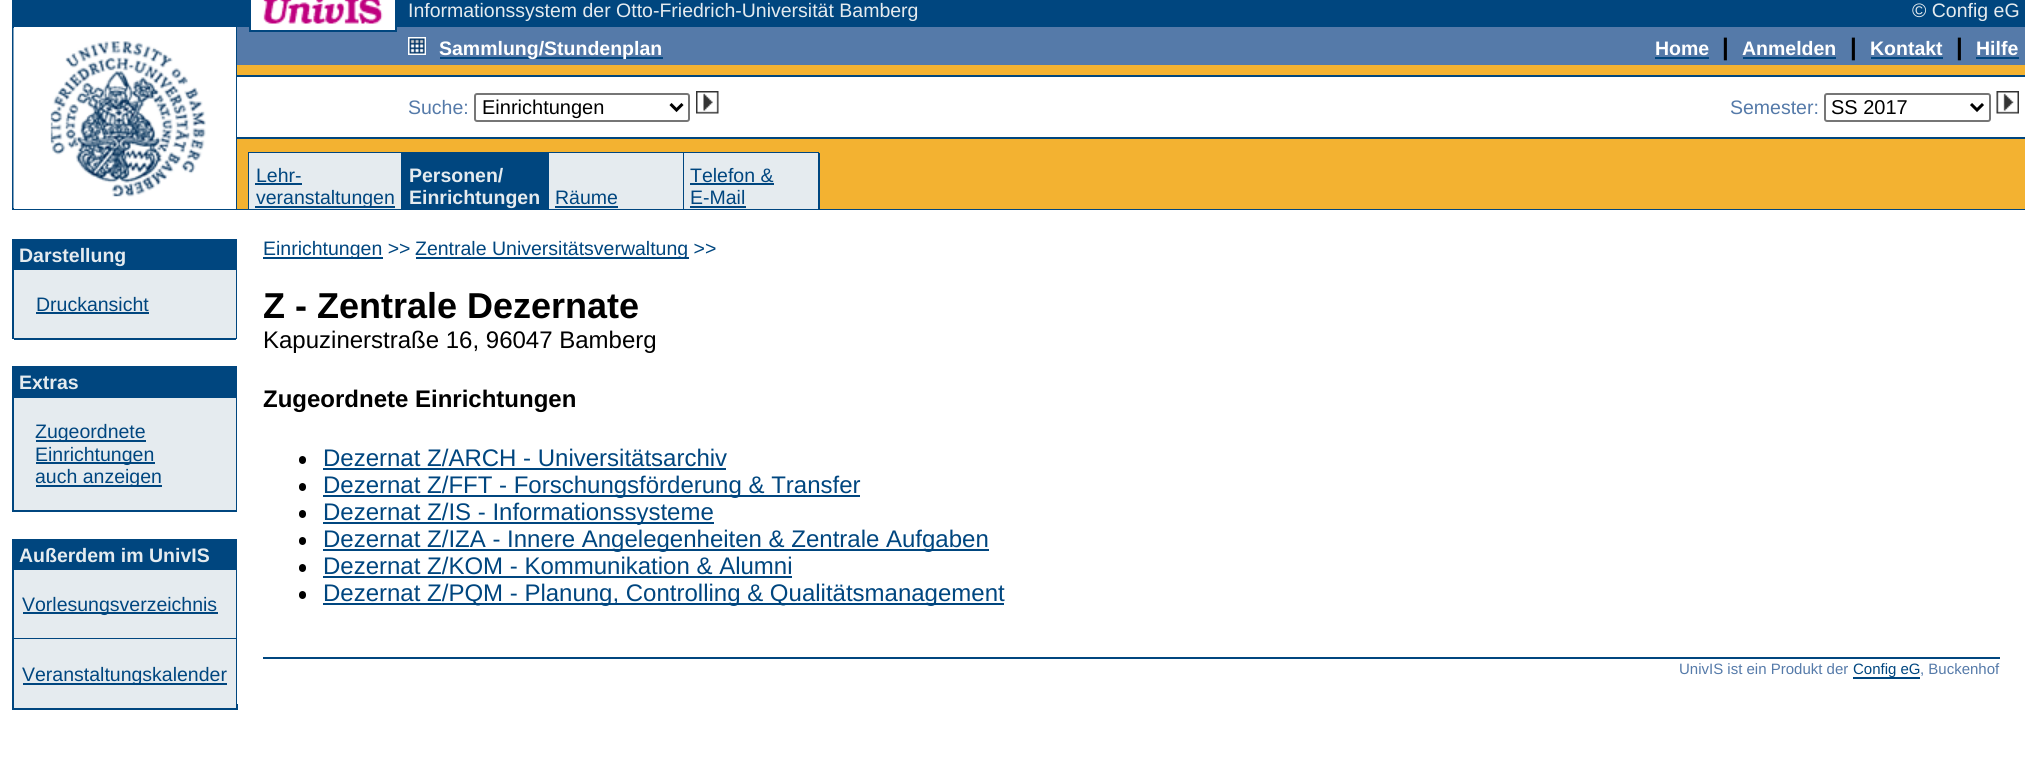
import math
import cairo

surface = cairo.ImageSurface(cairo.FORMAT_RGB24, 2036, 759)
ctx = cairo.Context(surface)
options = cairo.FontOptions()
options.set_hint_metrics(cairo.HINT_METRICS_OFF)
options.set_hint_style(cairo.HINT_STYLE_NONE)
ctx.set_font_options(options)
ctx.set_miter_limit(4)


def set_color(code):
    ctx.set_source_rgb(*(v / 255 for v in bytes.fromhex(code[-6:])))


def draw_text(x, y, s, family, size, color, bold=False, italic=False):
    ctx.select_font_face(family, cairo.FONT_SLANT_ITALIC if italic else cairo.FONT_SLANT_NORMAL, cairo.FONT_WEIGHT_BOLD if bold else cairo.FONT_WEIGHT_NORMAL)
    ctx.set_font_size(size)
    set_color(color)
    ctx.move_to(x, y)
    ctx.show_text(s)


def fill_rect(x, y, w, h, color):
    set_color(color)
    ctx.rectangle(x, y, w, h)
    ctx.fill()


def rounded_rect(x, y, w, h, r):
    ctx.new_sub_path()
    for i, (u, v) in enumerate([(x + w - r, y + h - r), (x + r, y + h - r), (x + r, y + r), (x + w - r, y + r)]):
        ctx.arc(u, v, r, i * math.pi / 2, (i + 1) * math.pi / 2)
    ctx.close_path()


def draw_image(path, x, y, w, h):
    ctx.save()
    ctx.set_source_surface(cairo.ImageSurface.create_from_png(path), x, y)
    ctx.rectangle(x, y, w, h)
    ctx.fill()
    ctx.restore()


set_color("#ffffff")
ctx.paint()
fill_rect(12, 0, 239, 26, "#00467f")
draw_image("assets/img1.png", 263, 0, 120, 24)
fill_rect(395, 0, 1630, 26, "#00467f")
draw_text(408, 17, "Informationssystem der Otto-Friedrich-Universität Bamberg", "Liberation Sans", 19.5, "#e5ebef")
draw_text(1912, 17, "© Config eG", "Liberation Sans", 19.5, "#e5ebef")
fill_rect(12, 26, 2013, 1, "#00467f")
fill_rect(251, 26, 144, 1, "#ffffff")
fill_rect(12, 27, 2, 183, "#00467f")
fill_rect(236, 27, 1, 182, "#00467f")
draw_image("assets/img2.png", 13, 28, 193, 180)
fill_rect(237, 65, 1788, 144, "#f3b231")
fill_rect(237, 27, 1788, 3, "#557aa9")
fill_rect(249, 27, 2, 3, "#00467f")
fill_rect(251, 27, 144, 3, "#ffffff")
fill_rect(395, 27, 2, 3, "#00467f")
fill_rect(237, 30, 1788, 3, "#557aa9")
fill_rect(249, 30, 148, 2, "#00467f")
fill_rect(237, 33, 1788, 32, "#557aa9")
draw_image("assets/img3.png", 408, 37, 18, 18)
fill_rect(440, 57, 223, 2, "#00467f")
draw_text(439, 55, "Sammlung/Stundenplan", "Liberation Sans", 19.5, "#ffffff", bold=True)
draw_text(1655, 55, "Home", "Liberation Sans", 19.5, "#ffffff", bold=True)
fill_rect(1655, 57, 54, 2, "#00467f")
draw_text(1722, 55, "|", "Liberation Sans", 24, "#000000", bold=True)
draw_text(1742, 55, "Anmelden", "Liberation Sans", 19.5, "#ffffff", bold=True)
fill_rect(1743, 57, 93, 2, "#00467f")
draw_text(1850, 55, "|", "Liberation Sans", 24, "#000000", bold=True)
draw_text(1870, 55, "Kontakt", "Liberation Sans", 19.5, "#ffffff", bold=True)
fill_rect(1871, 57, 72, 2, "#00467f")
draw_text(1956, 55, "|", "Liberation Sans", 24, "#000000", bold=True)
draw_text(1976, 55, "Hilfe", "Liberation Sans", 19.5, "#ffffff", bold=True)
fill_rect(1976, 57, 43, 2, "#00467f")
fill_rect(237, 75, 1788, 2, "#00467f")
fill_rect(237, 77, 1788, 60, "#ffffff")
draw_text(408, 114, "Suche:", "Liberation Sans", 19.5, "#557aa9")
rounded_rect(475, 94, 214, 27, 2)
set_color("#767676")
ctx.stroke()
ctx.new_path()
ctx.move_to(670.5, 104)
ctx.line_to(676.5, 110)
ctx.line_to(682.5, 104)
set_color("#000000")
ctx.set_line_width(3)
ctx.stroke()
draw_text(482, 114, "Einrichtungen", "Liberation Sans", 20, "#000000")
draw_image("assets/img4.png", 696, 91, 23, 23)
draw_text(1730, 114, "Semester:", "Liberation Sans", 19.5, "#557aa9")
rounded_rect(1825, 94, 165, 27, 2)
set_color("#767676")
ctx.set_line_width(2)
ctx.stroke()
ctx.new_path()
ctx.move_to(1971, 104)
ctx.line_to(1977, 110)
ctx.line_to(1983, 104)
set_color("#000000")
ctx.set_line_width(3)
ctx.stroke()
draw_text(1831, 114, "SS 2017", "Liberation Sans", 20, "#000000")
draw_image("assets/img5.png", 1996, 91, 23, 23)
fill_rect(237, 137, 1788, 2, "#00467f")
fill_rect(248, 152, 571, 1, "#00467f")
fill_rect(248, 153, 1, 56, "#00467f")
fill_rect(249, 153, 152, 56, "#e5ebef")
fill_rect(401, 153, 148, 56, "#00467f")
fill_rect(549, 153, 134, 56, "#e5ebef")
fill_rect(683, 153, 1, 56, "#00467f")
fill_rect(684, 153, 134, 56, "#e5ebef")
fill_rect(818, 153, 2, 56, "#00467f")
draw_text(256, 182, "Lehr-", "Liberation Sans", 19.5, "#00467f")
fill_rect(255, 183, 47, 2, "#00467f")
fill_rect(255, 206, 140, 2, "#00467f")
draw_text(256, 204, "veranstaltungen", "Liberation Sans", 19.5, "#00467f")
draw_text(409, 182, "Personen/", "Liberation Sans", 19.5, "#e5ebef", bold=True)
draw_text(409, 204, "Einrichtungen", "Liberation Sans", 19.5, "#e5ebef", bold=True)
draw_text(555, 204, "Räume", "Liberation Sans", 19.5, "#00467f")
fill_rect(555, 206, 63, 2, "#00467f")
draw_text(690, 182, "Telefon &", "Liberation Sans", 19.5, "#00467f")
fill_rect(690, 183, 84, 2, "#00467f")
draw_text(690, 204, "E-Mail", "Liberation Sans", 19.5, "#00467f")
fill_rect(690, 206, 56, 2, "#00467f")
fill_rect(14, 209, 2011, 1, "#00467f")
fill_rect(12, 239, 2, 100, "#00467f")
fill_rect(14, 239, 222, 31, "#00467f")
fill_rect(236, 239, 1, 100, "#00467f")
draw_text(19, 262, "Darstellung", "Liberation Sans", 19.5, "#e5ebef", bold=True)
fill_rect(14, 270, 222, 68, "#e5ebef")
draw_text(36, 311, "Druckansicht", "Liberation Sans", 19.5, "#00467f")
fill_rect(36, 312, 113, 2, "#00467f")
fill_rect(14, 338, 222, 2, "#00467f")
fill_rect(12, 366, 2, 146, "#00467f")
fill_rect(14, 366, 222, 32, "#00467f")
fill_rect(236, 366, 1, 146, "#00467f")
draw_text(19, 389, "Extras", "Liberation Sans", 19.5, "#e5ebef", bold=True)
fill_rect(14, 398, 222, 112, "#e5ebef")
fill_rect(36, 440, 110, 2, "#00467f")
draw_text(35, 438, "Zugeordnete", "Liberation Sans", 19.5, "#00467f")
fill_rect(36, 462, 119, 2, "#00467f")
draw_text(35, 461, "Einrichtungen", "Liberation Sans", 19.5, "#00467f")
fill_rect(36, 485, 126, 2, "#00467f")
draw_text(35, 483, "auch anzeigen", "Liberation Sans", 19.5, "#00467f")
fill_rect(14, 510, 222, 2, "#00467f")
fill_rect(12, 539, 2, 171, "#00467f")
fill_rect(14, 539, 222, 31, "#00467f")
fill_rect(236, 539, 1, 100, "#00467f")
draw_text(19, 562, "Außerdem im UnivIS", "Liberation Sans", 19.5, "#e5ebef", bold=True)
fill_rect(14, 570, 222, 68, "#e5ebef")
fill_rect(23, 612, 195, 2, "#00467f")
draw_text(22, 611, "Vorlesungsverzeichnis", "Liberation Sans", 19.5, "#00467f")
fill_rect(14, 638, 222, 1, "#00467f")
fill_rect(14, 639, 222, 2, "#e5ebef")
fill_rect(236, 639, 2, 71, "#00467f")
fill_rect(14, 641, 222, 67, "#e5ebef")
fill_rect(23, 683, 204, 2, "#00467f")
draw_text(22, 681, "Veranstaltungskalender", "Liberation Sans", 19.5, "#00467f")
fill_rect(14, 708, 222, 2, "#00467f")
fill_rect(237, 639, 1, 65, "#ffffff")
fill_rect(263, 257, 120, 2, "#00467f")
draw_text(263, 255, "Einrichtungen >>", "Liberation Sans", 19.5, "#00467f")
fill_rect(416, 257, 273, 2, "#00467f")
draw_text(415, 255, "Zentrale Universitätsverwaltung >>", "Liberation Sans", 19.5, "#00467f")
draw_text(263, 318, "Z - Zentrale Dezernate", "Liberation Sans", 36, "#000000", bold=True)
draw_text(263, 348, "Kapuzinerstraße 16, 96047 Bamberg", "Liberation Sans", 24, "#000000")
draw_text(263, 407, "Zugeordnete Einrichtungen", "Liberation Sans", 24, "#000000", bold=True)
rounded_rect(299, 456, 7, 8, 3.5)
ctx.fill()
draw_text(323, 466, "Dezernat Z/ARCH - Universitätsarchiv", "Liberation Sans", 24, "#00467f")
fill_rect(323, 468, 403, 2, "#00467f")
set_color("#000000")
rounded_rect(299, 483, 7, 8, 3.5)
ctx.fill()
fill_rect(323, 495, 537, 2, "#00467f")
draw_text(323, 493, "Dezernat Z/FFT - Forschungsförderung & Transfer", "Liberation Sans", 24, "#00467f")
set_color("#000000")
rounded_rect(299, 510, 7, 8, 3.5)
ctx.fill()
fill_rect(323, 522, 391, 2, "#00467f")
draw_text(323, 520, "Dezernat Z/IS - Informationssysteme", "Liberation Sans", 24, "#00467f")
set_color("#000000")
rounded_rect(299, 537, 7, 8, 3.5)
ctx.fill()
fill_rect(323, 549, 666, 2, "#00467f")
draw_text(323, 547, "Dezernat Z/IZA - Innere Angelegenheiten & Zentrale Aufgaben", "Liberation Sans", 24, "#00467f")
set_color("#000000")
rounded_rect(299, 564, 7, 8, 3.5)
ctx.fill()
draw_text(323, 574, "Dezernat Z/KOM - Kommunikation & Alumni", "Liberation Sans", 24, "#00467f")
fill_rect(323, 576, 469, 2, "#00467f")
set_color("#000000")
rounded_rect(299, 591, 7, 8, 3.5)
ctx.fill()
fill_rect(323, 603, 681, 2, "#00467f")
draw_text(323, 601, "Dezernat Z/PQM - Planung, Controlling & Qualitätsmanagement", "Liberation Sans", 24, "#00467f")
fill_rect(263, 657, 1737, 2, "#00467f")
draw_text(1679, 674, "UnivIS ist ein Produkt der", "Liberation Sans", 15, "#557aa9")
fill_rect(1853, 677, 67, 2, "#00467f")
draw_text(1853, 674, "Config eG", "Liberation Sans", 15, "#00467f")
draw_text(1920, 674, ", Buckenhof", "Liberation Sans", 15, "#557aa9")
surface.write_to_png("output.png")
